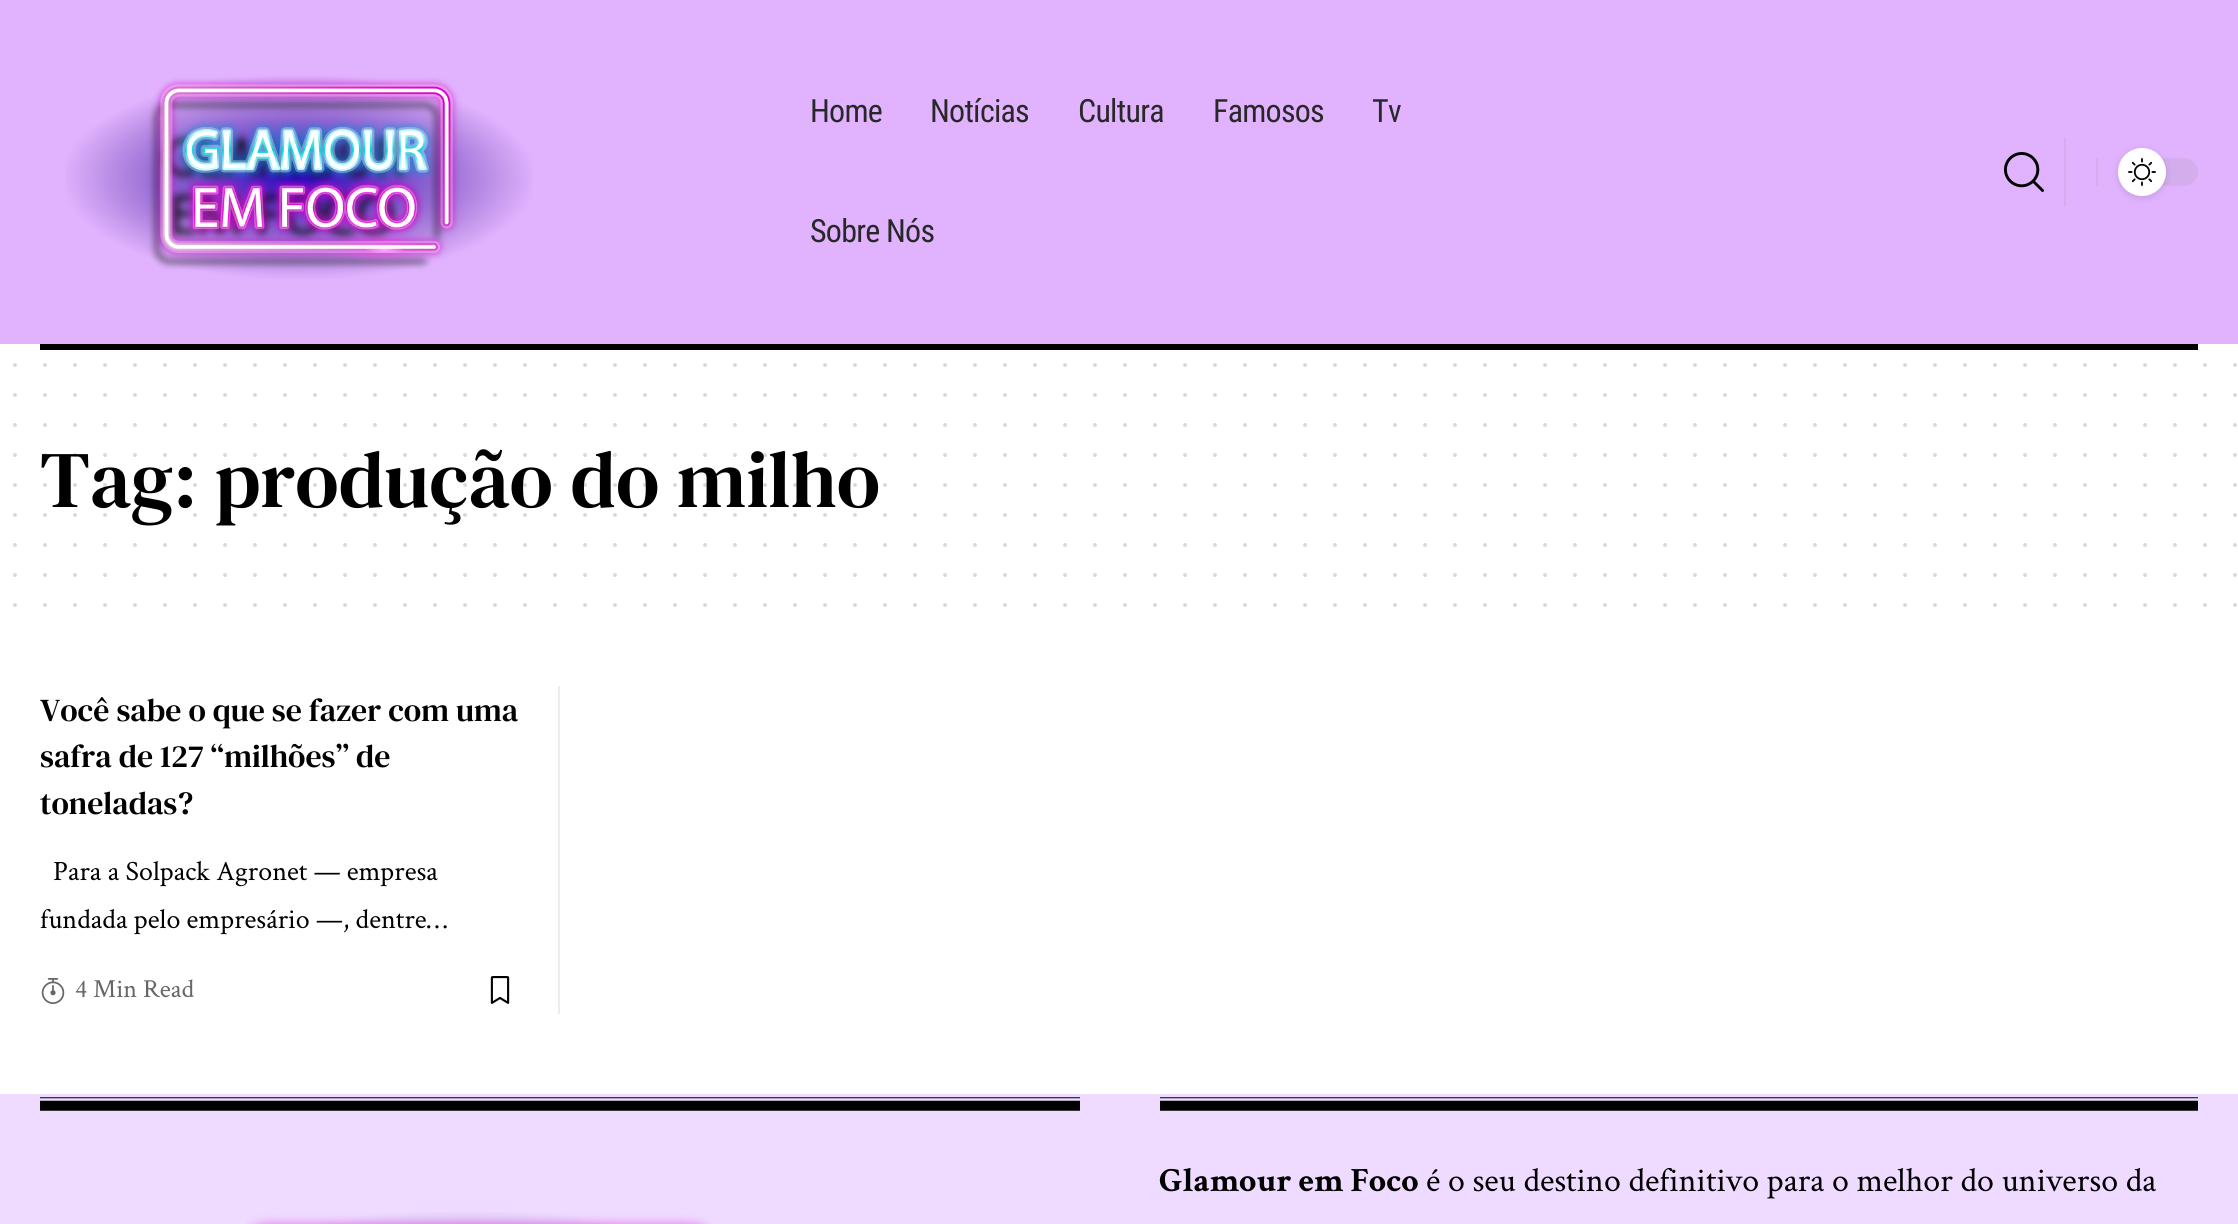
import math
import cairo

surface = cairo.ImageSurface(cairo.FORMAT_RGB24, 2238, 1224)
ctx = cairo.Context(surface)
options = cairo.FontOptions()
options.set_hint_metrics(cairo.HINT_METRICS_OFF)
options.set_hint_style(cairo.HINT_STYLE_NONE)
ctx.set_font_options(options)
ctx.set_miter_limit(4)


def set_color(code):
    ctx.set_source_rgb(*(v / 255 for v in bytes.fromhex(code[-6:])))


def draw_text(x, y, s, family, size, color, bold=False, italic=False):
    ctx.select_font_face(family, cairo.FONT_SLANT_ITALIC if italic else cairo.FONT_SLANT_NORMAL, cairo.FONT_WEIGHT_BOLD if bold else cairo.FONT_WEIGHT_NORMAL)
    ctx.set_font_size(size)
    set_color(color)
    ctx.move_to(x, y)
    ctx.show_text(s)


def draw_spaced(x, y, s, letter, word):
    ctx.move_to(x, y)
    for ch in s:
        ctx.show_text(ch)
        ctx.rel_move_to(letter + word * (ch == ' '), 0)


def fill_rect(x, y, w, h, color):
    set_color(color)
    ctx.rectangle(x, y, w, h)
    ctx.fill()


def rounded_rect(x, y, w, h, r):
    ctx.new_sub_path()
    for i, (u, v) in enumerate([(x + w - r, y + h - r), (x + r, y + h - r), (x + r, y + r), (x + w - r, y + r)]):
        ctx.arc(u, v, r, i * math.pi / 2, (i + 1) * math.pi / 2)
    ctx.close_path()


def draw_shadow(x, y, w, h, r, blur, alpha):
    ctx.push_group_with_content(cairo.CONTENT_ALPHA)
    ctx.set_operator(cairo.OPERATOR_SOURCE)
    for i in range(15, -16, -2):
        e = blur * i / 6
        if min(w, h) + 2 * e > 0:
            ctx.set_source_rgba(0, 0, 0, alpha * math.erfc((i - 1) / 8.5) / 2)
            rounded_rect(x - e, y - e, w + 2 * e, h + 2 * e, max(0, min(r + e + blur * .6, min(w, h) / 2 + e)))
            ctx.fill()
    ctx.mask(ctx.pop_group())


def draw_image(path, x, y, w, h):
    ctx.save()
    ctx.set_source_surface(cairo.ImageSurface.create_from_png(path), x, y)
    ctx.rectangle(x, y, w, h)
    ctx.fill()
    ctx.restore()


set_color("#ffffff")
ctx.paint()
fill_rect(0, 0, 2238, 344, "#e1b3ff")
draw_image("assets/img1.png", 65, 75, 468, 204)
ctx.select_font_face("Roboto Condensed")
ctx.set_font_size(32)
set_color("#282828")
draw_spaced(810, 122, "Home", -0.75, 0)
draw_spaced(930, 122, "Notícias", -0.75, 0)
draw_spaced(1078, 122, "Cultura", -0.75, 0)
draw_spaced(1213, 122, "Famosos", -0.75, 0)
draw_spaced(1372, 122, "Tv", -0.75, 0)
draw_spaced(810, 242, "Sobre Nós", -0.75, 0)
fill_rect(2064, 138, 2, 68, "#d5adef")
draw_image("assets/img2.png", 2004, 152, 40, 40)
fill_rect(2096, 158, 2, 28, "#d5adef")
set_color("#d4aded")
rounded_rect(2118, 158, 80, 28, 14)
ctx.fill()
set_color("#000000")
draw_shadow(2118, 150, 48, 48, 24, 4, 0.12)
set_color("#ffffff")
ctx.arc(2142, 172, 24, 0, 2 * math.pi)
ctx.fill()
draw_image("assets/img3.png", 2128, 158, 28, 28)
fill_rect(40, 344, 2158, 6, "#000000")
ctx.new_path()
ctx.move_to(15, 365)
ctx.line_to(2235.4, 365)
set_color("#d9d9d9")
ctx.set_line_width(4)
ctx.set_line_cap(cairo.LINE_CAP_ROUND)
ctx.set_dash([0, 30])
ctx.stroke()
ctx.new_path()
ctx.move_to(15, 395)
ctx.line_to(2235.4, 395)
ctx.stroke()
ctx.new_path()
ctx.move_to(15, 425)
ctx.line_to(2235.4, 425)
ctx.stroke()
draw_text(40, 507, "Tag: produção do milho", "DM Serif Text", 80, "#000000")
ctx.new_path()
ctx.move_to(15, 455)
ctx.line_to(2235.4, 455)
ctx.set_source_rgba(0, 0, 0, 0.15)
ctx.stroke()
ctx.new_path()
ctx.move_to(15, 485)
ctx.line_to(2235.4, 485)
ctx.stroke()
ctx.new_path()
ctx.move_to(15, 515)
ctx.line_to(2235.4, 515)
ctx.stroke()
ctx.new_path()
ctx.move_to(15, 545)
ctx.line_to(2235.4, 545)
set_color("#d9d9d9")
ctx.stroke()
ctx.new_path()
ctx.move_to(15, 575)
ctx.line_to(2235.4, 575)
ctx.stroke()
ctx.new_path()
ctx.move_to(15, 605)
ctx.line_to(2235.4, 605)
ctx.stroke()
draw_text(40, 721, "Você sabe o que se fazer com uma", "DM Serif Text", 32, "#000000")
draw_text(40, 767, "safra de 127 “milhões” de", "DM Serif Text", 32, "#000000")
draw_text(40, 814, "toneladas?", "DM Serif Text", 32, "#000000")
fill_rect(558, 686, 2, 328, "#ededed")
draw_text(53, 880, "Para a Solpack Agronet — empresa", "Crimson Text", 28, "#000000")
draw_text(40, 928, "fundada pelo empresário —, dentre…", "Crimson Text", 28, "#000000")
draw_image("assets/img4.png", 41, 978, 24, 26)
draw_text(75, 997, "4 Min Read", "Crimson Text", 26, "#666666")
draw_image("assets/img5.png", 490, 976, 20, 28)
fill_rect(0, 1094, 2238, 130, "#eedbff")
draw_image("assets/img6.png", 40, 1097, 1040, 14)
draw_image("assets/img7.png", 246, 1212, 466, 12)
draw_image("assets/img8.png", 1160, 1097, 1038, 14)
draw_text(1159, 1191, "Glamour em Foco", "Crimson Text", 34, "#000000", bold=True)
draw_text(1426, 1191, "é o seu destino definitivo para o melhor do universo da", "Crimson Text", 34, "#000000")
surface.write_to_png("output.png")
